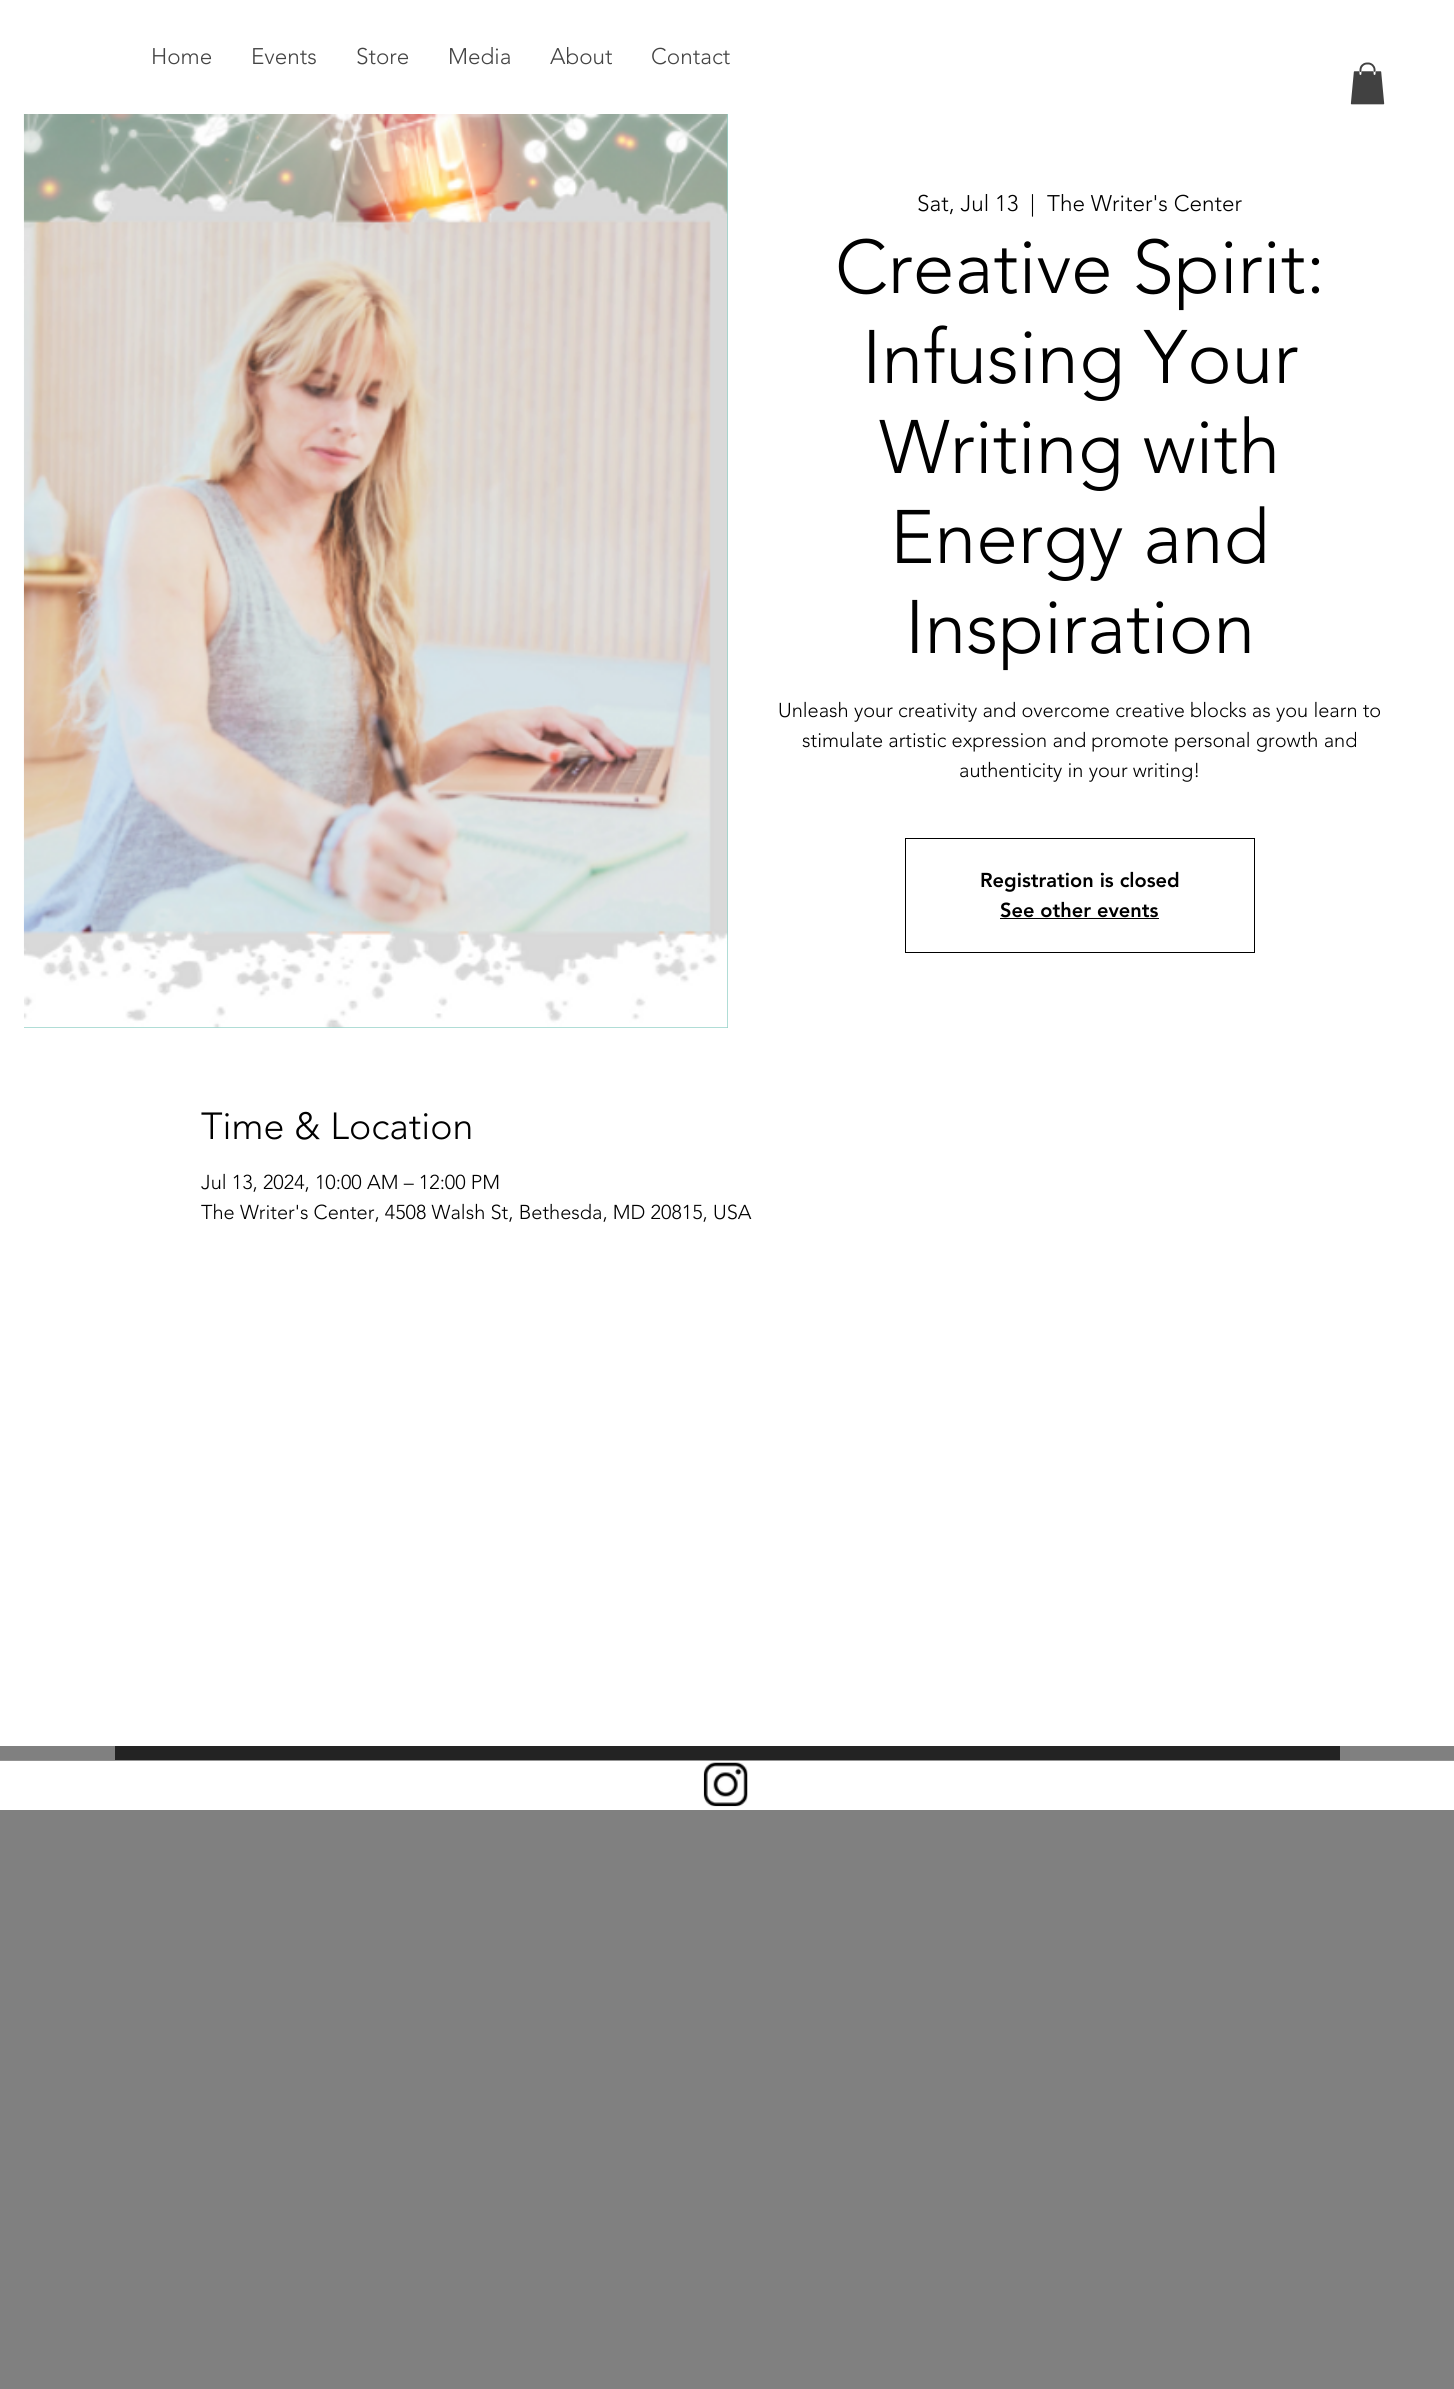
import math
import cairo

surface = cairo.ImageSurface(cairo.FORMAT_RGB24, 1454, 2389)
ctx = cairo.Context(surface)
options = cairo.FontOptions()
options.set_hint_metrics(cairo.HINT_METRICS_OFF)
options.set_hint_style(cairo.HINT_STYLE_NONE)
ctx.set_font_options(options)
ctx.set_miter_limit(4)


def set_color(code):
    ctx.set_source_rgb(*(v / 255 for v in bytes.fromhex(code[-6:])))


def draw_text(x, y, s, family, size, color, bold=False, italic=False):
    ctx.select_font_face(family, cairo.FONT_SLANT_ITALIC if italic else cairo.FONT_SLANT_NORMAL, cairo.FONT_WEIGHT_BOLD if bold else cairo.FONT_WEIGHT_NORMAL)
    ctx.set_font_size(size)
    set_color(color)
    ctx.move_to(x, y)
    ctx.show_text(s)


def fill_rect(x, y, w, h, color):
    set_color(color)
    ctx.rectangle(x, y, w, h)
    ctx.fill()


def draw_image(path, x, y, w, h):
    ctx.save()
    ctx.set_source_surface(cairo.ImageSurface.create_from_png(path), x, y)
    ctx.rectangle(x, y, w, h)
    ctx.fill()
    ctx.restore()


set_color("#808080")
ctx.paint()
fill_rect(0, 0, 1454, 1746, "#ffffff")
draw_text(151, 64, "Home", "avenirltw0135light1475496 Light", 22.5, "#444444")
draw_text(251, 64, "Events", "avenirltw0135light1475496 Light", 22.5, "#444444")
draw_text(356, 64, "Store", "avenirltw0135light1475496 Light", 22.5, "#444444")
draw_text(448, 64, "Media", "avenirltw0135light1475496 Light", 22.5, "#444444")
draw_text(550, 64, "About", "avenirltw0135light1475496 Light", 22.5, "#444444")
draw_text(651, 64, "Contact", "avenirltw0135light1475496 Light", 22.5, "#444444")
draw_image("assets/img1.png", 1350, 62, 35, 43)
fill_rect(24, 114, 704, 914, "#95d2c8")
draw_image("assets/img2.png", 23, 114, 705, 914)
draw_text(917, 211, "Sat, Jul 13", "avenirltw0135light1475496 Light", 22.5, "#000000")
draw_text(1030, 211, "|", "avenirltw0135light1475496 Light", 22.5, "#000000")
draw_text(1047, 211, "The Writer's Center", "avenirltw0135light1475496 Light", 22.5, "#000000")
draw_text(835, 293, "Creative Spirit:", "avenirltw0135light1475496 Light", 75, "#000000")
draw_text(862, 383, "Infusing Your", "avenirltw0135light1475496 Light", 75, "#000000")
draw_text(879, 473, "Writing with", "avenirltw0135light1475496 Light", 75, "#000000")
draw_text(890, 563, "Energy and", "avenirltw0135light1475496 Light", 75, "#000000")
draw_text(905, 653, "Inspiration", "avenirltw0135light1475496 Light", 75, "#000000")
draw_text(778, 717, "Unleash your creativity and overcome creative blocks as you learn to", "avenirltw0135light1475496 Light", 20, "#000000")
draw_text(802, 747, "stimulate artistic expression and promote personal growth and", "avenirltw0135light1475496 Light", 20, "#000000")
draw_text(959, 777, "authenticity in your writing!", "avenirltw0135light1475496 Light", 20, "#000000")
ctx.rectangle(905.5, 838.5, 349, 114)
ctx.set_line_width(1)
ctx.stroke()
draw_text(980, 887, "Registration is closed", "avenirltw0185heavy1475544 Black", 20, "#000000")
draw_text(1000, 917, "See other events", "avenirltw0185heavy1475544 Black", 20, "#000000")
fill_rect(1000, 918, 159, 1, "#000000")
draw_text(201, 1139, "Time & Location", "avenirltw0135light1475496 Light", 37.5, "#000000")
draw_text(201, 1189, "Jul 13, 2024, 10:00 AM – 12:00 PM", "avenirltw0135light1475496 Light", 20, "#000000")
draw_text(201, 1219, "The Writer's Center, 4508 Walsh St, Bethesda, MD 20815, USA", "avenirltw0135light1475496 Light", 20, "#000000")
fill_rect(115, 1746, 1225, 14, "#232323")
fill_rect(0, 1760, 1454, 1, "#939393")
fill_rect(0, 1761, 1454, 49, "#ffffff")
draw_image("assets/img3.png", 703, 1762, 45, 45)
surface.write_to_png("output.png")
